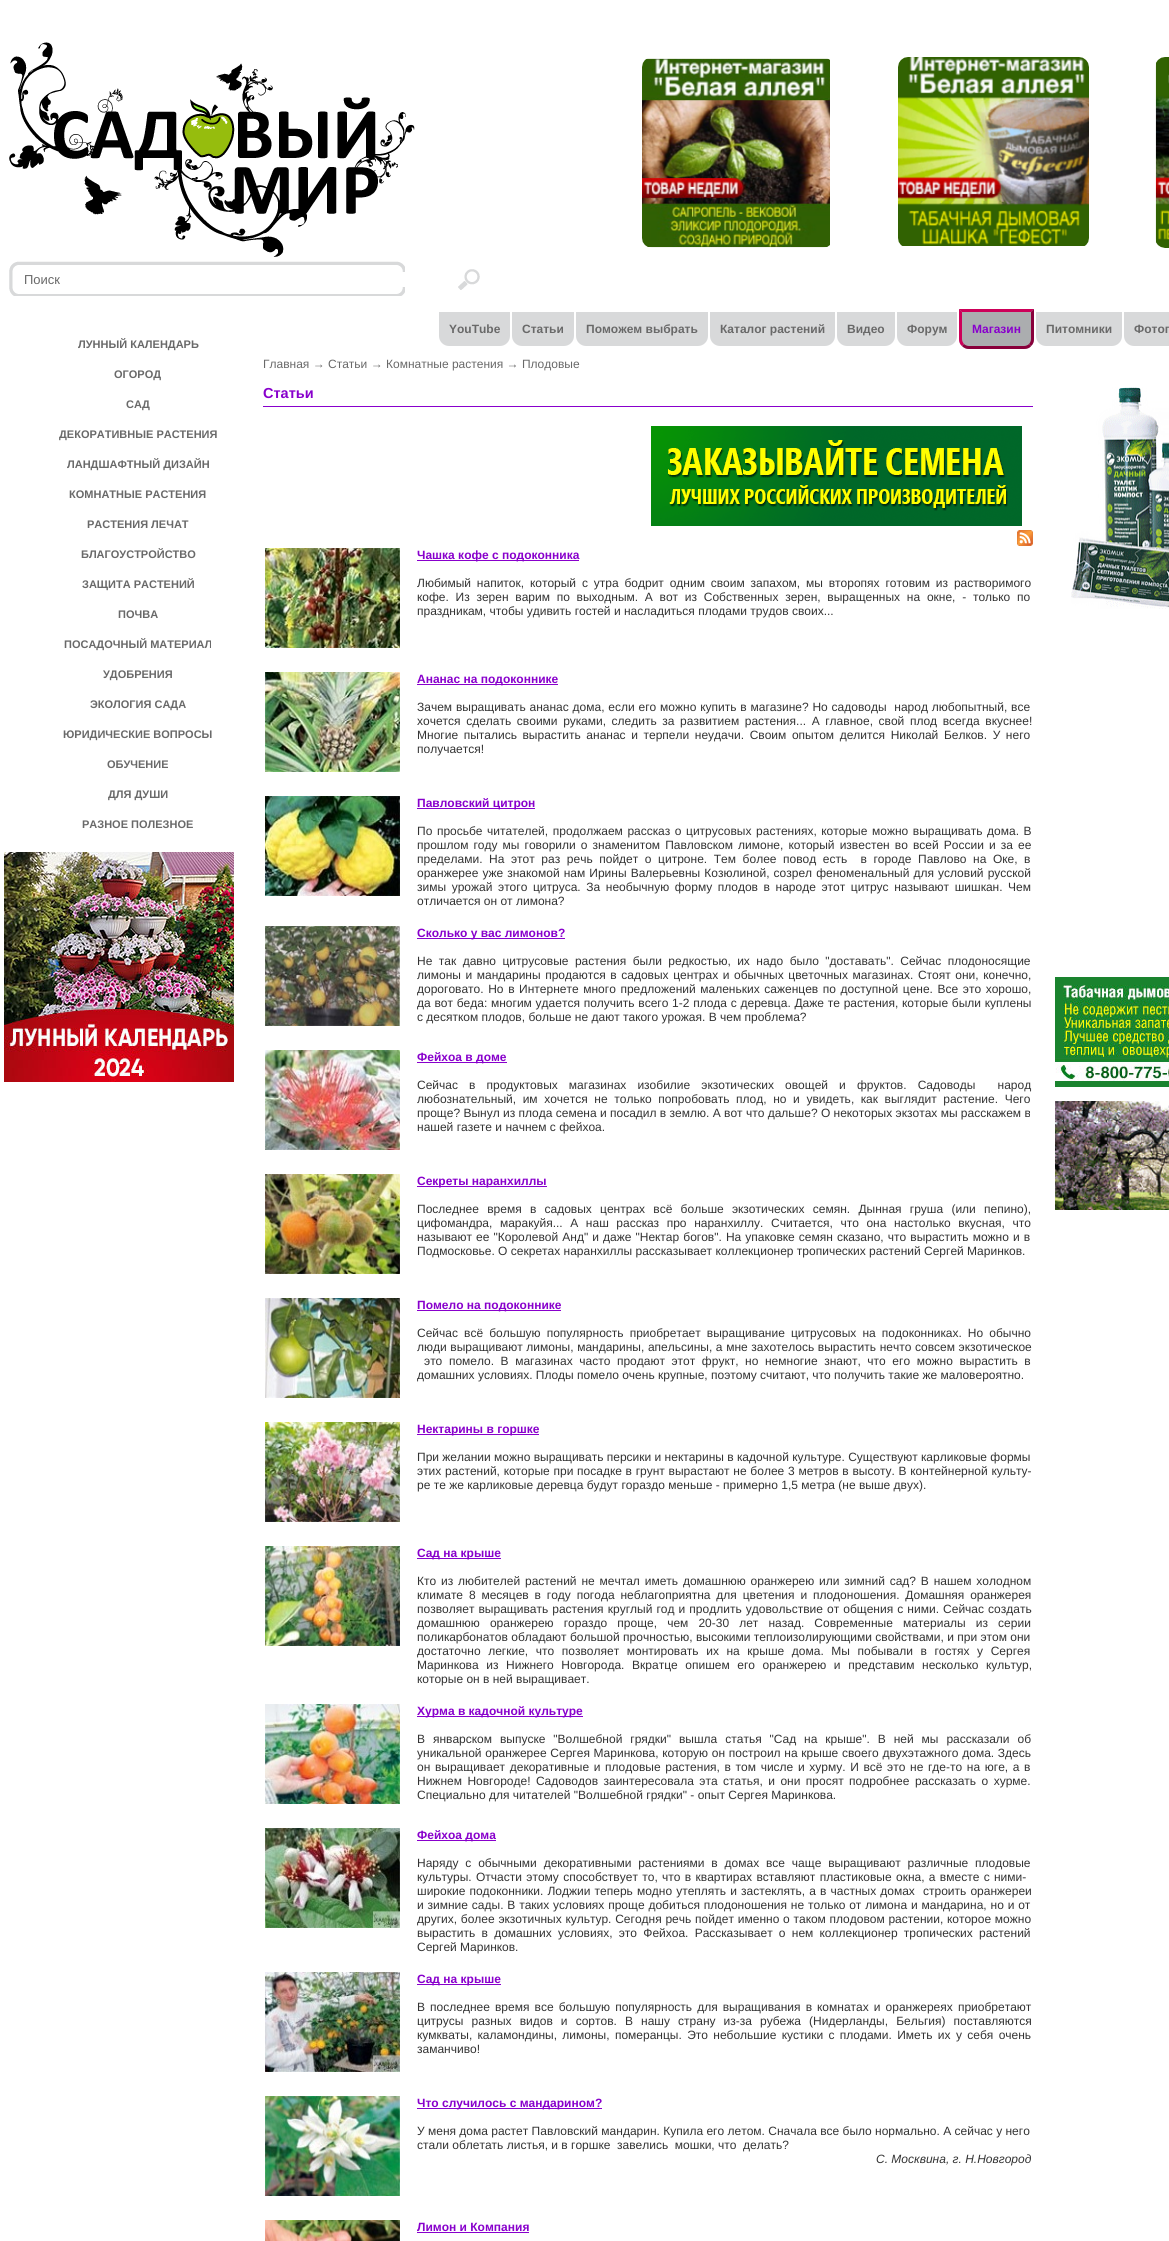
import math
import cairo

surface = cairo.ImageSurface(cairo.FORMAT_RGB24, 1169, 2241)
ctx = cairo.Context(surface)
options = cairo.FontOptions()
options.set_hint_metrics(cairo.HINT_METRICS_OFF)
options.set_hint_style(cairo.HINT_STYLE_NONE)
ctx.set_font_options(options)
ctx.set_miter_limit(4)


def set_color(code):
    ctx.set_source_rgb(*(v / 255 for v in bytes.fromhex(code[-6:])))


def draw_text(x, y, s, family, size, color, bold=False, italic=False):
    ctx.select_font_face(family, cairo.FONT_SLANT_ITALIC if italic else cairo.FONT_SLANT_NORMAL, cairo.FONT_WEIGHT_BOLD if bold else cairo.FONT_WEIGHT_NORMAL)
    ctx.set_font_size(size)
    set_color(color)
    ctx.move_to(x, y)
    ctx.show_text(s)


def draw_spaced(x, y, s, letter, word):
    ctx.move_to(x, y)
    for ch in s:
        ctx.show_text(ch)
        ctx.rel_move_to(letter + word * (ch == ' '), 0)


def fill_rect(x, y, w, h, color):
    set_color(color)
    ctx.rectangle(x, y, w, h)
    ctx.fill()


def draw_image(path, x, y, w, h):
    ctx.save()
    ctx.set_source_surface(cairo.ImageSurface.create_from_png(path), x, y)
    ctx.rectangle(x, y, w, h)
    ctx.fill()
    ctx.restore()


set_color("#ffffff")
ctx.paint()
draw_image("assets/img1.png", 642, 58, 188, 190)
draw_image("assets/img2.png", 898, 57, 191, 189)
draw_image("assets/img3.png", 1155, 57, 14, 191)
draw_image("assets/img4.png", 9, 42, 406, 215)
draw_image("assets/img5.png", 9, 261, 396, 35)
fill_rect(402, 272, 3, 15, "#ffffff")
draw_text(24, 284, "Поиск", "Liberation Sans", 13, "#696969")
draw_image("assets/img6.png", 458, 269, 22, 21)
draw_text(78, 348, "ЛУННЫЙ КАЛЕНДАРЬ", "Liberation Sans", 11, "#696969", bold=True)
draw_text(114, 378, "ОГОРОД", "Liberation Sans", 11, "#696969", bold=True)
draw_text(126, 408, "САД", "Liberation Sans", 11, "#696969", bold=True)
draw_text(59, 438, "ДЕКОРАТИВНЫЕ РАСТЕНИЯ", "Liberation Sans", 11, "#696969", bold=True)
draw_text(67, 468, "ЛАНДШАФТНЫЙ ДИЗАЙН", "Liberation Sans", 11, "#696969", bold=True)
draw_text(69, 498, "КОМНАТНЫЕ РАСТЕНИЯ", "Liberation Sans", 11, "#696969", bold=True)
draw_text(87, 528, "РАСТЕНИЯ ЛЕЧАТ", "Liberation Sans", 11, "#696969", bold=True)
draw_text(81, 558, "БЛАГОУСТРОЙСТВО", "Liberation Sans", 11, "#696969", bold=True)
draw_text(82, 588, "ЗАЩИТА РАСТЕНИЙ", "Liberation Sans", 11, "#696969", bold=True)
draw_text(118, 618, "ПОЧВА", "Liberation Sans", 11, "#696969", bold=True)
draw_text(64, 648, "ПОСАДОЧНЫЙ МАТЕРИАЛ", "Liberation Sans", 11, "#696969", bold=True)
draw_text(103, 678, "УДОБРЕНИЯ", "Liberation Sans", 11, "#696969", bold=True)
draw_text(90, 708, "ЭКОЛОГИЯ САДА", "Liberation Sans", 11, "#696969", bold=True)
draw_text(63, 738, "ЮРИДИЧЕСКИЕ ВОПРОСЫ", "Liberation Sans", 11, "#696969", bold=True)
draw_text(107, 768, "ОБУЧЕНИЕ", "Liberation Sans", 11, "#696969", bold=True)
draw_text(108, 798, "ДЛЯ ДУШИ", "Liberation Sans", 11, "#696969", bold=True)
draw_text(82, 828, "РАЗНОЕ ПОЛЕЗНОЕ", "Liberation Sans", 11, "#696969", bold=True)
draw_image("assets/img7.png", 4, 852, 230, 230)
set_color("#d8d9da")
ctx.new_path()
ctx.move_to(439, 312)
ctx.line_to(510, 312)
ctx.line_to(510, 336)
ctx.curve_to(510, 341.5, 505.5, 346, 500, 346)
ctx.line_to(449, 346)
ctx.curve_to(443.5, 346, 439, 341.5, 439, 336)
ctx.close_path()
ctx.fill()
draw_text(449, 333, "YouTube", "Liberation Sans", 12, "#696969", bold=True)
set_color("#d8d9da")
ctx.new_path()
ctx.move_to(512, 312)
ctx.line_to(574, 312)
ctx.line_to(574, 336)
ctx.curve_to(574, 341.5, 569.5, 346, 564, 346)
ctx.line_to(522, 346)
ctx.curve_to(516.5, 346, 512, 341.5, 512, 336)
ctx.close_path()
ctx.fill()
draw_text(522, 333, "Статьи", "Liberation Sans", 12, "#696969", bold=True)
set_color("#d8d9da")
ctx.new_path()
ctx.move_to(576, 312)
ctx.line_to(708, 312)
ctx.line_to(708, 336)
ctx.curve_to(708, 341.5, 703.5, 346, 698, 346)
ctx.line_to(586, 346)
ctx.curve_to(580.5, 346, 576, 341.5, 576, 336)
ctx.close_path()
ctx.fill()
draw_text(586, 333, "Поможем выбрать", "Liberation Sans", 12, "#696969", bold=True)
set_color("#d8d9da")
ctx.new_path()
ctx.move_to(710, 312)
ctx.line_to(835, 312)
ctx.line_to(835, 336)
ctx.curve_to(835, 341.5, 830.5, 346, 825, 346)
ctx.line_to(720, 346)
ctx.curve_to(714.5, 346, 710, 341.5, 710, 336)
ctx.close_path()
ctx.fill()
draw_text(720, 333, "Каталог растений", "Liberation Sans", 12, "#696969", bold=True)
set_color("#d8d9da")
ctx.new_path()
ctx.move_to(837, 312)
ctx.line_to(895, 312)
ctx.line_to(895, 336)
ctx.curve_to(895, 341.5, 890.5, 346, 885, 346)
ctx.line_to(847, 346)
ctx.curve_to(841.5, 346, 837, 341.5, 837, 336)
ctx.close_path()
ctx.fill()
draw_text(847, 333, "Видео", "Liberation Sans", 12, "#696969", bold=True)
set_color("#d8d9da")
ctx.new_path()
ctx.move_to(897, 312)
ctx.line_to(957, 312)
ctx.line_to(957, 336)
ctx.curve_to(957, 341.5, 952.5, 346, 947, 346)
ctx.line_to(907, 346)
ctx.curve_to(901.5, 346, 897, 341.5, 897, 336)
ctx.close_path()
ctx.fill()
draw_text(907, 333, "Форум", "Liberation Sans", 12, "#696969", bold=True)
set_color("#abadaf")
ctx.new_path()
ctx.move_to(959, 309)
ctx.line_to(1034, 309)
ctx.line_to(1034, 339)
ctx.curve_to(1034, 344.5, 1029.5, 349, 1024, 349)
ctx.line_to(969, 349)
ctx.curve_to(963.5, 349, 959, 344.5, 959, 339)
ctx.close_path()
ctx.fill()
set_color("#cd0059")
ctx.new_path()
ctx.move_to(959, 309)
ctx.line_to(962, 312)
ctx.line_to(1031, 312)
ctx.line_to(1034, 309)
ctx.close_path()
ctx.fill()
set_color("#89003b")
ctx.new_path()
ctx.move_to(1034, 309)
ctx.line_to(1031, 312)
ctx.line_to(1031, 339)
ctx.curve_to(1031, 341, 1030, 343, 1029, 344)
ctx.line_to(1031, 346)
ctx.curve_to(1033, 344.5, 1034, 342, 1034, 339)
ctx.close_path()
ctx.fill()
ctx.new_path()
ctx.move_to(969, 349)
ctx.line_to(1024, 349)
ctx.curve_to(1027, 349, 1030, 348, 1031, 346)
ctx.line_to(1029, 344)
ctx.curve_to(1028, 345, 1026, 346, 1024, 346)
ctx.line_to(969, 346)
ctx.curve_to(967, 346, 965, 345, 964, 344)
ctx.line_to(962, 346)
ctx.curve_to(964, 348, 966, 349, 969, 349)
ctx.close_path()
ctx.fill()
set_color("#cd0059")
ctx.new_path()
ctx.move_to(962, 312)
ctx.line_to(959, 309)
ctx.line_to(959, 339)
ctx.curve_to(959, 342, 960, 344.5, 962, 346)
ctx.line_to(964, 344)
ctx.curve_to(963, 343, 962, 341, 962, 339)
ctx.close_path()
ctx.fill()
draw_text(972, 333, "Магазин", "Liberation Sans", 12, "#8800cc", bold=True)
set_color("#d8d9da")
ctx.new_path()
ctx.move_to(1036, 312)
ctx.line_to(1122, 312)
ctx.line_to(1122, 336)
ctx.curve_to(1122, 341.5, 1117.5, 346, 1112, 346)
ctx.line_to(1046, 346)
ctx.curve_to(1040.5, 346, 1036, 341.5, 1036, 336)
ctx.close_path()
ctx.fill()
draw_text(1046, 333, "Питомники", "Liberation Sans", 12, "#696969", bold=True)
set_color("#d8d9da")
ctx.new_path()
ctx.move_to(1124, 312)
ctx.line_to(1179, 312)
ctx.line_to(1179, 336)
ctx.curve_to(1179, 341.5, 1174.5, 346, 1169, 346)
ctx.line_to(1134, 346)
ctx.curve_to(1128.5, 346, 1124, 341.5, 1124, 336)
ctx.close_path()
ctx.fill()
draw_text(1134, 333, "Фотог", "Liberation Sans", 12, "#696969", bold=True)
draw_text(263, 368, "Главная → Статьи → Комнатные растения → Плодовые", "Liberation Sans", 12, "#696969")
fill_rect(263, 406, 770, 1, "#8800cc")
draw_text(263, 398, "Статьи", "Liberation Sans", 14.5, "#8800cc", bold=True)
draw_image("assets/img8.png", 651, 426, 371, 100)
draw_image("assets/img9.png", 1017, 530, 16, 16)
draw_image("assets/img10.png", 265, 548, 135, 100)
fill_rect(417, 560, 162, 1, "#8800cc")
draw_text(417, 559, "Чашка кофе с подоконника", "Liberation Sans", 12, "#8800cc", bold=True)
ctx.select_font_face("Liberation Sans")
set_color("#333333")
draw_spaced(417, 587, "Любимый напиток, который с утра бодрит одним своим запахом, мы второпях готовим из растворимого", 0, 2.5)
draw_spaced(417, 601, "кофе. Из зерен варим по выходным. А вот из Собственных зерен, выращенных на окне, - только по", 0, 3.4)
draw_text(417, 615, "праздникам, чтобы удивить гостей и насладиться плодами трудов своих...", "Liberation Sans", 12, "#333333")
draw_image("assets/img11.png", 265, 672, 135, 100)
fill_rect(417, 684, 141, 1, "#8800cc")
draw_text(417, 683, "Ананас на подоконнике", "Liberation Sans", 12, "#8800cc", bold=True)
ctx.select_font_face("Liberation Sans")
set_color("#333333")
draw_spaced(417, 711, "Зачем выращивать ананас дома, если его можно купить в магазине? Но садоводы  народ любопытный, все", 0, 0.5)
draw_spaced(417, 725, "хочется сделать своими руками, следить за развитием растения... А главное, свой плод всегда вкуснее!", 0, 2.25)
draw_spaced(417, 739, "Многие пытались вырастить ананас и терпели неудачи. Своим опытом делится Николай Белков. У него", 0, 2.25)
draw_text(417, 753, "получается!", "Liberation Sans", 12, "#333333")
draw_image("assets/img12.png", 265, 796, 135, 100)
fill_rect(417, 808, 118, 1, "#8800cc")
draw_text(417, 807, "Павловский цитрон", "Liberation Sans", 12, "#8800cc", bold=True)
ctx.select_font_face("Liberation Sans")
set_color("#333333")
draw_spaced(417, 835, "По просьбе читателей, продолжаем рассказ о цитрусовых растениях, которые можно выращивать дома. В", 0, 1.25)
draw_spaced(417, 849, "прошлом году мы говорили о знаменитом Павловском лимоне, который известен во всей России и за ее", 0, 1.75)
draw_spaced(417, 863, "пределами. На этот раз речь пойдет о цитроне. Тем более повод есть  в городе Павлово на Оке, в", 0, 3.25)
draw_spaced(417, 877, "оранжерее уже знакомой нам Ирины Валерьевны Козюлиной, созрел феноменальный для условий русской", 0, 0.75)
draw_spaced(417, 891, "зимы урожай этого цитруса. За необычную форму плодов в народе этот цитрус называют шишкан. Чем", 0, 2.25)
draw_text(417, 905, "отличается он от лимона?", "Liberation Sans", 12, "#333333")
draw_image("assets/img13.png", 265, 926, 135, 100)
fill_rect(417, 938, 148, 1, "#8800cc")
draw_text(417, 937, "Сколько у вас лимонов?", "Liberation Sans", 12, "#8800cc", bold=True)
ctx.select_font_face("Liberation Sans")
set_color("#333333")
draw_spaced(417, 965, "Не так давно цитрусовые растения были редкостью, их надо было \"доставать\". Сейчас плодоносящие", 0, 3.1)
draw_spaced(417, 979, "лимоны и мандарины продаются в садовых центрах и обычных цветочных магазинах. Стоят они, конечно,", 0, 1.25)
draw_spaced(417, 993, "дороговато. Но в Интернете много предложений маленьких саженцев по доступной цене. Все это хорошо,", 0, 1.25)
draw_spaced(417, 1007, "да вот беда: многим удается получить всего 1-2 плода с деревца. Даже те растения, которые были куплены", 0, 0.4)
draw_text(417, 1021, "с десятком плодов, больше не дают такого урожая. В чем проблема?", "Liberation Sans", 12, "#333333")
draw_image("assets/img14.png", 265, 1050, 135, 100)
fill_rect(417, 1062, 90, 1, "#8800cc")
draw_text(417, 1061, "Фейхоа в доме", "Liberation Sans", 12, "#8800cc", bold=True)
ctx.select_font_face("Liberation Sans")
set_color("#333333")
draw_spaced(417, 1089, "Сейчас в продуктовых магазинах изобилие экзотических овощей и фруктов. Садоводы  народ", 0, 7.75)
draw_spaced(417, 1103, "любознательный, им хочется не только попробовать плод, но и увидеть, как выглядит растение. Чего", 0, 3.25)
draw_text(417, 1117, "проще? Вынул из плода семена и посадил в землю. А вот что дальше? О некоторых экзотах мы расскажем в", "Liberation Sans", 12, "#333333")
draw_text(417, 1131, "нашей газете и начнем с фейхоа.", "Liberation Sans", 12, "#333333")
draw_image("assets/img15.png", 265, 1174, 135, 100)
fill_rect(417, 1186, 130, 1, "#8800cc")
draw_text(417, 1185, "Секреты наранхиллы", "Liberation Sans", 12, "#8800cc", bold=True)
ctx.select_font_face("Liberation Sans")
set_color("#333333")
draw_spaced(417, 1213, "Последнее время в садовых центрах всё больше экзотических семян. Дынная груша (или пепино),", 0, 4.9)
draw_spaced(417, 1227, "цифомандра, маракуйя... А наш рассказ про наранхиллу. Считается, что она настолько вкусная, что", 0, 4.25)
draw_spaced(417, 1241, "называют ее \"Королевой Анд\" и даже \"Нектар богов\". На упаковке семян сказано, что вырастить можно и в", 0, 0.75)
draw_text(417, 1255, "Подмосковье. О секретах наранхиллы рассказывает коллекционер тропических растений Сергей Маринков.", "Liberation Sans", 12, "#333333")
draw_image("assets/img16.png", 265, 1298, 135, 100)
fill_rect(417, 1310, 144, 1, "#8800cc")
draw_text(417, 1309, "Помело на подоконнике", "Liberation Sans", 12, "#8800cc", bold=True)
ctx.select_font_face("Liberation Sans")
set_color("#333333")
draw_spaced(417, 1337, "Сейчас всё большую популярность приобретает выращивание цитрусовых на подоконниках. Но обычно", 0, 2.75)
draw_spaced(417, 1351, "люди выращивают лимоны, мандарины, апельсины, а мне захотелось вырастить нечто совсем экзотическое", 0, 0.25)
draw_spaced(424, 1365, "это помело. В магазинах часто продают этот фрукт, но немногие знают, что его можно вырастить в", 0, 3.25)
draw_text(417, 1379, "домашних условиях. Плоды помело очень крупные, поэтому считают, что получить такие же маловероятно.", "Liberation Sans", 12, "#333333")
draw_image("assets/img17.png", 265, 1422, 135, 100)
fill_rect(417, 1434, 122, 1, "#8800cc")
draw_text(417, 1433, "Нектарины в горшке", "Liberation Sans", 12, "#8800cc", bold=True)
draw_text(417, 1461, "При желании можно выращивать персики и нектарины в кадочной культуре. Существуют карликовые формы", "Liberation Sans", 12, "#333333")
draw_spaced(417, 1475, "этих растений, которые при посадке в грунт вырастают не более 3 метров в высоту. В контейнерной культу-", 0, 0.4)
draw_text(417, 1489, "ре те же карликовые деревца будут гораздо меньше - примерно 1,5 метра (не выше двух).", "Liberation Sans", 12, "#333333")
draw_image("assets/img18.png", 265, 1546, 135, 100)
fill_rect(417, 1558, 84, 1, "#8800cc")
draw_text(417, 1557, "Сад на крыше", "Liberation Sans", 12, "#8800cc", bold=True)
ctx.select_font_face("Liberation Sans")
set_color("#333333")
draw_spaced(417, 1585, "Кто из любителей растений не мечтал иметь домашнюю оранжерею или зимний сад? В нашем холодном", 0, 1.5)
draw_spaced(417, 1599, "климате 8 месяцев в году погода неблагоприятна для цветения и плодоношения. Домашняя оранжерея", 0, 2.5)
draw_spaced(417, 1613, "позволяет выращивать растения круглый год и продлить удовольствие от общения с ними. Сейчас создать", 0, 0.75)
draw_spaced(417, 1627, "домашнюю оранжерею гораздо проще, чем 20-30 лет назад. Современные материалы из серии", 0, 6.75)
draw_text(417, 1641, "поликарбонатов обладают большой прочностью, высокими теплоизолирующими свойствами, и при этом они", "Liberation Sans", 12, "#333333")
draw_spaced(417, 1655, "достаточно легкие, что позволяет монтировать их на крыше дома. Мы побывали в гостях у Сергея", 0, 4.25)
draw_spaced(417, 1669, "Маринкова из Нижнего Новгорода. Вкратце опишем его оранжерею и представим несколько культур,", 0, 4.25)
draw_text(417, 1683, "которые он в ней выращивает.", "Liberation Sans", 12, "#333333")
draw_image("assets/img19.png", 265, 1704, 135, 100)
fill_rect(417, 1716, 166, 1, "#8800cc")
draw_text(417, 1715, "Хурма в кадочной культуре", "Liberation Sans", 12, "#8800cc", bold=True)
ctx.select_font_face("Liberation Sans")
set_color("#333333")
draw_spaced(417, 1743, "В январском выпуске \"Волшебной грядки\" вышла статья \"Сад на крыше\". В ней мы рассказали об", 0, 4.6)
draw_spaced(417, 1757, "уникальной оранжерее Сергея Маринкова, которую он построил на крыше своего двухэтажного дома. Здесь", 0, 0.4)
draw_spaced(417, 1771, "он выращивает декоративные и плодовые растения, в том числе и хурму. И всё это не где-то на юге, а в", 0, 1.3)
draw_spaced(417, 1785, "Нижнем Новгороде! Садоводов заинтересовала эта статья, и они просят подробнее рассказать о хурме.", 0, 2.1)
draw_text(417, 1799, "Специально для читателей \"Волшебной грядки\" - опыт Сергея Маринкова.", "Liberation Sans", 12, "#333333")
draw_image("assets/img20.png", 265, 1828, 135, 100)
fill_rect(417, 1840, 79, 1, "#8800cc")
draw_text(417, 1839, "Фейхоа дома", "Liberation Sans", 12, "#8800cc", bold=True)
ctx.select_font_face("Liberation Sans")
set_color("#333333")
draw_spaced(417, 1867, "Наряду с обычными декоративными растениями в домах все чаще выращивают различные плодовые", 0, 3.5)
draw_spaced(417, 1881, "культуры. Отчасти этому способствует то, что в квартирах вставляют пластиковые окна, а вместе с ними-", 0, 1)
draw_spaced(417, 1895, "широкие подоконники. Лоджии теперь модно утеплять и застеклять, а в частных домах  строить оранжереи", 0, 0.75)
draw_spaced(417, 1909, "и зимние сады. В таких условиях проще добиться плодоношения не только от лимона и мандарина, но и от", 0, 0.5)
draw_spaced(417, 1923, "других, более экзотичных культур. Сегодня речь пойдет именно о таком плодовом растении, которое можно", 0, 0.4)
draw_spaced(417, 1937, "вырастить в домашних условиях, это Фейхоа. Рассказывает о нем коллекционер тропических растений", 0, 2.9)
draw_text(417, 1951, "Сергей Маринков.", "Liberation Sans", 12, "#333333")
draw_image("assets/img21.png", 265, 1972, 135, 100)
fill_rect(417, 1984, 84, 1, "#8800cc")
draw_text(417, 1983, "Сад на крыше", "Liberation Sans", 12, "#8800cc", bold=True)
ctx.select_font_face("Liberation Sans")
set_color("#333333")
draw_spaced(417, 2011, "В последнее время все большую популярность для выращивания в комнатах и оранжереях приобретают", 0, 1.75)
draw_spaced(417, 2025, "цитрусы разных видов и сортов. В нашу страну из-за рубежа (Нидерланды, Бельгия) поставляются", 0, 4.75)
draw_spaced(417, 2039, "кумкваты, каламондины, лимоны, померанцы. Это небольшие кустики с плодами. Иметь их у себя очень", 0, 2)
draw_text(417, 2053, "заманчиво!", "Liberation Sans", 12, "#333333")
draw_image("assets/img22.png", 265, 2096, 135, 100)
fill_rect(417, 2108, 185, 1, "#8800cc")
draw_text(417, 2107, "Что случилось с мандарином?", "Liberation Sans", 12, "#8800cc", bold=True)
draw_text(417, 2135, "У меня дома растет Павловский мандарин. Купила его летом. Сначала все было нормально. А сейчас у него", "Liberation Sans", 12, "#333333")
draw_text(417, 2149, "стали облетать листья, и в горшке  завелись  мошки, что  делать?", "Liberation Sans", 12, "#333333")
draw_text(876, 2163, "С. Москвина, г. Н.Новгород", "Liberation Sans", 12, "#333333", italic=True)
draw_image("assets/img23.png", 265, 2220, 135, 21)
draw_text(417, 2231, "Лимон и Компания", "Liberation Sans", 12, "#8800cc", bold=True)
fill_rect(417, 2232, 112, 1, "#8800cc")
draw_image("assets/img24.png", 1071, 387, 98, 222)
draw_image("assets/img25.png", 1055, 977, 114, 110)
draw_image("assets/img26.png", 1055, 1101, 114, 109)
surface.write_to_png("output.png")
